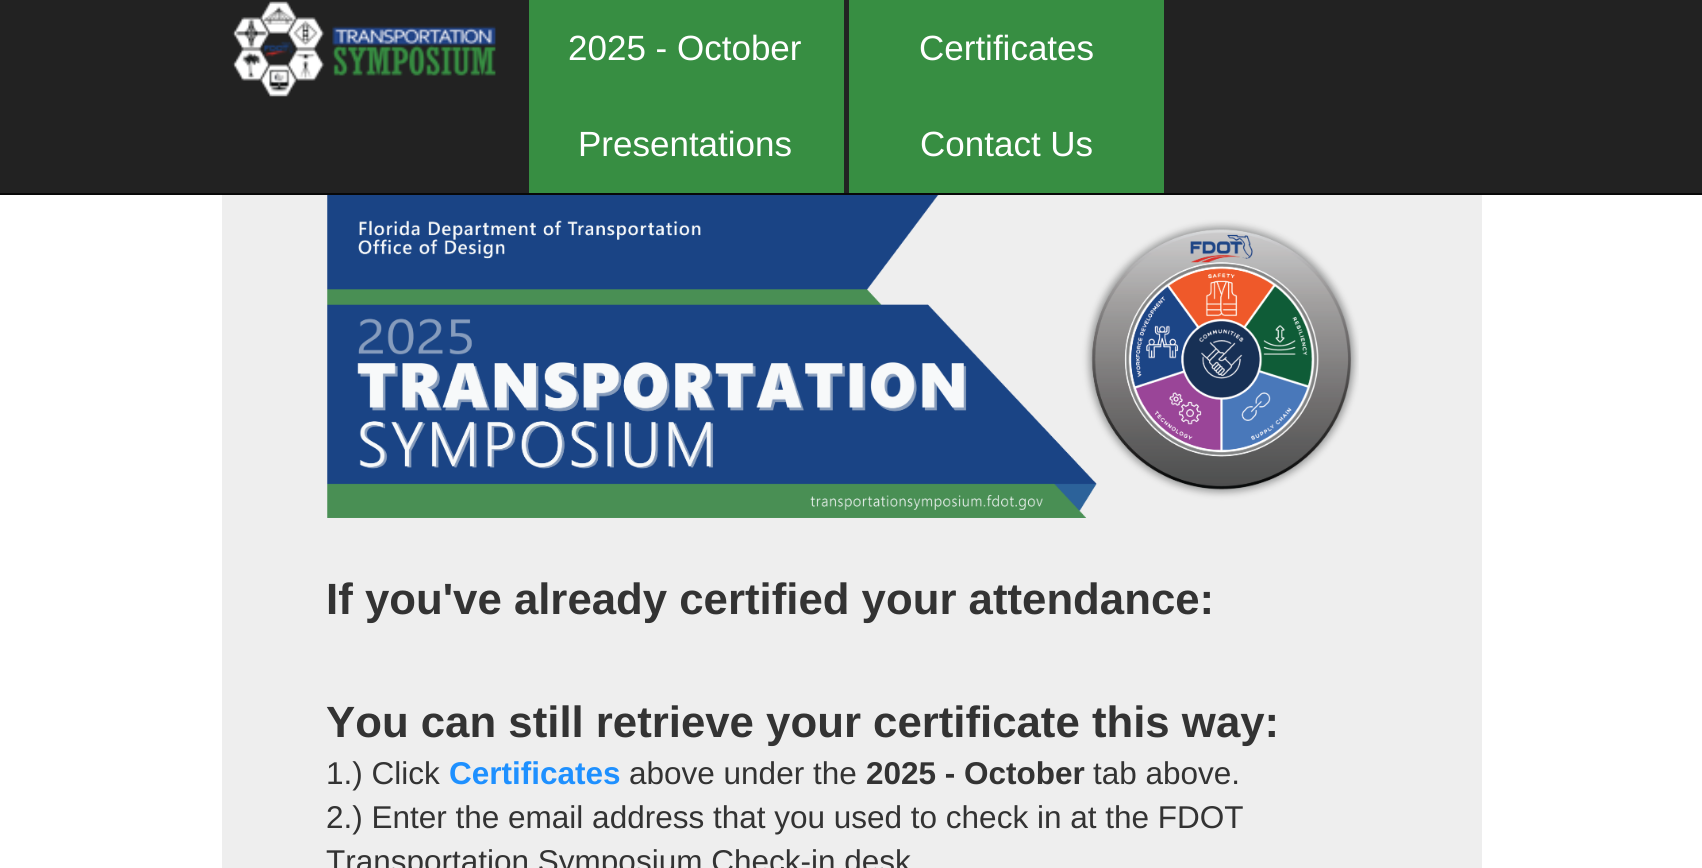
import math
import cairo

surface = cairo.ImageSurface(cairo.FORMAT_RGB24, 1702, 868)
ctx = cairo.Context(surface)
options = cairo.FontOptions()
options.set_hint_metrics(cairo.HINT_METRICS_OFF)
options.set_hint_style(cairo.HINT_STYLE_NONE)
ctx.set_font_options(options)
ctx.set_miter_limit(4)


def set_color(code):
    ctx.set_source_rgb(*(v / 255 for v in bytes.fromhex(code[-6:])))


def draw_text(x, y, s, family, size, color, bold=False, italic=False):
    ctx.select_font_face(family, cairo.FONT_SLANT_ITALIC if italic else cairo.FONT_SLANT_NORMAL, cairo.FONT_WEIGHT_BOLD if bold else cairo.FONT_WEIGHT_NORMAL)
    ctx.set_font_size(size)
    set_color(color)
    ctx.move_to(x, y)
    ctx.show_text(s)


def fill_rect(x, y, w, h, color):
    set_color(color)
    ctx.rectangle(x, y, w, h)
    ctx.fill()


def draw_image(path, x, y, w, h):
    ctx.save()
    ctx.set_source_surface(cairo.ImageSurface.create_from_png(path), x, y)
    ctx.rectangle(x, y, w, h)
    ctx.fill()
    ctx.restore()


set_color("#ffffff")
ctx.paint()
fill_rect(0, 0, 1702, 193, "#222222")
fill_rect(0, 193, 1702, 2, "#080808")
draw_image("assets/img1.png", 232, 1, 264, 96)
fill_rect(529, 0, 315, 193, "#378e42")
draw_text(568, 60, "2025 - October", "Liberation Sans", 35, "#ffffff")
fill_rect(849, 0, 315, 193, "#378e42")
draw_text(919, 60, "Certificates", "Liberation Sans", 35, "#ffffff")
draw_text(578, 156, "Presentations", "Liberation Sans", 35, "#ffffff")
draw_text(920, 156, "Contact Us", "Liberation Sans", 35, "#ffffff")
fill_rect(222, 195, 1260, 673, "#eeeeee")
draw_image("assets/img2.png", 327, 195, 1032, 323)
draw_text(326, 614, "If you've already certified your attendance:", "Liberation Sans", 43.75, "#333333", bold=True)
draw_text(326, 737, "You can still retrieve your certificate this way:", "Liberation Sans", 43.75, "#333333", bold=True)
draw_text(326, 784, "1.) Click", "Liberation Sans", 31.5, "#333333")
draw_text(449, 784, "Certificates", "Liberation Sans", 31.5, "#1e90ff", bold=True)
draw_text(629, 784, "above under the", "Liberation Sans", 31.5, "#333333")
draw_text(866, 784, "2025 - October", "Liberation Sans", 31.5, "#333333", bold=True)
draw_text(1093, 784, "tab above.", "Liberation Sans", 31.5, "#333333")
draw_text(326, 828, "2.) Enter the email address that you used to check in at the FDOT", "Liberation Sans", 31.5, "#333333")
draw_text(326, 872, "Transportation Symposium Check-in desk", "Liberation Sans", 31.5, "#333333")
surface.write_to_png("output.png")
